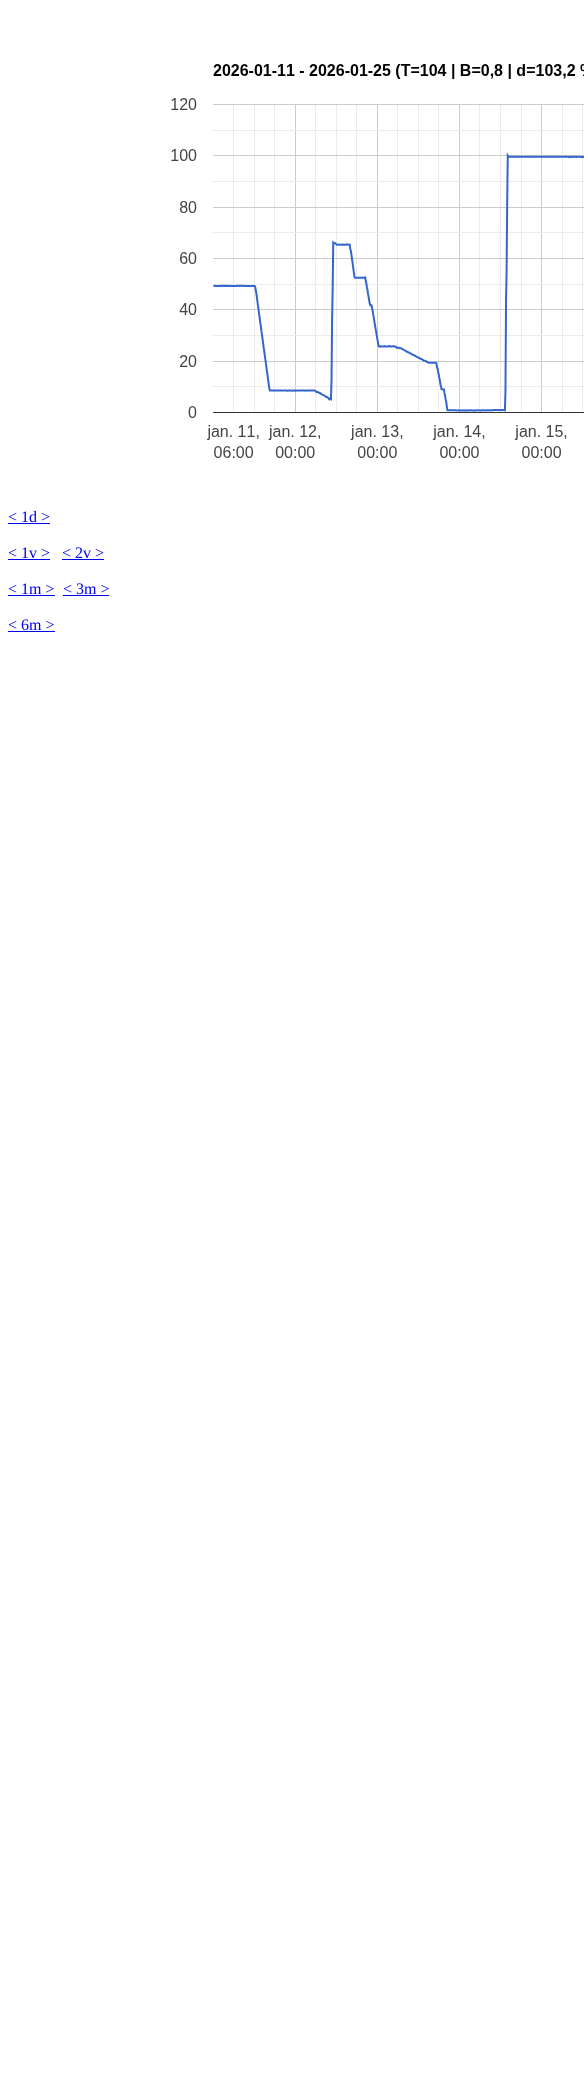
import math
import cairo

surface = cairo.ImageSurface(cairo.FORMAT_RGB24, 584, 2089)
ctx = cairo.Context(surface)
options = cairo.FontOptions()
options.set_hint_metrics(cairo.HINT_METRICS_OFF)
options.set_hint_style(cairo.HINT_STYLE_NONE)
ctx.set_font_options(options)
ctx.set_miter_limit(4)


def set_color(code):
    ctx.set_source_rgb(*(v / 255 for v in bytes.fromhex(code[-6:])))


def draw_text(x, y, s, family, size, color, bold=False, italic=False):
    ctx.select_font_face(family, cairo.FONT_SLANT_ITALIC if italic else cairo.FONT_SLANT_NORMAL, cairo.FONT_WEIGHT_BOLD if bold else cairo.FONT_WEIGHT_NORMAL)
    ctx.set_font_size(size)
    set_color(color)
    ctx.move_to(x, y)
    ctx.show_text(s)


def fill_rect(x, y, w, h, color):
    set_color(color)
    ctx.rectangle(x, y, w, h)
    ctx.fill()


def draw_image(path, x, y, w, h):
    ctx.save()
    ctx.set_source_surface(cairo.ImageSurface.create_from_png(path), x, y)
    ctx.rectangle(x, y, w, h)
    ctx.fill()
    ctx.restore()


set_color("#ffffff")
ctx.paint()
draw_image("assets/img1.png", 171, 64, 413, 394)
draw_text(8, 522, "< 1d >", "Liberation Serif", 16, "#0000ee")
fill_rect(8, 523, 42, 1, "#0000ee")
draw_text(8, 558, "< 1v >", "Liberation Serif", 16, "#0000ee")
fill_rect(8, 559, 42, 1, "#0000ee")
draw_text(62, 558, "< 2v >", "Liberation Serif", 16, "#0000ee")
fill_rect(62, 559, 42, 1, "#0000ee")
draw_text(8, 594, "< 1m >", "Liberation Serif", 16, "#0000ee")
fill_rect(8, 595, 47, 1, "#0000ee")
draw_text(63, 594, "< 3m >", "Liberation Serif", 16, "#0000ee")
fill_rect(63, 595, 46, 1, "#0000ee")
draw_text(8, 630, "< 6m >", "Liberation Serif", 16, "#0000ee")
fill_rect(8, 631, 47, 1, "#0000ee")
surface.write_to_png("output.png")
